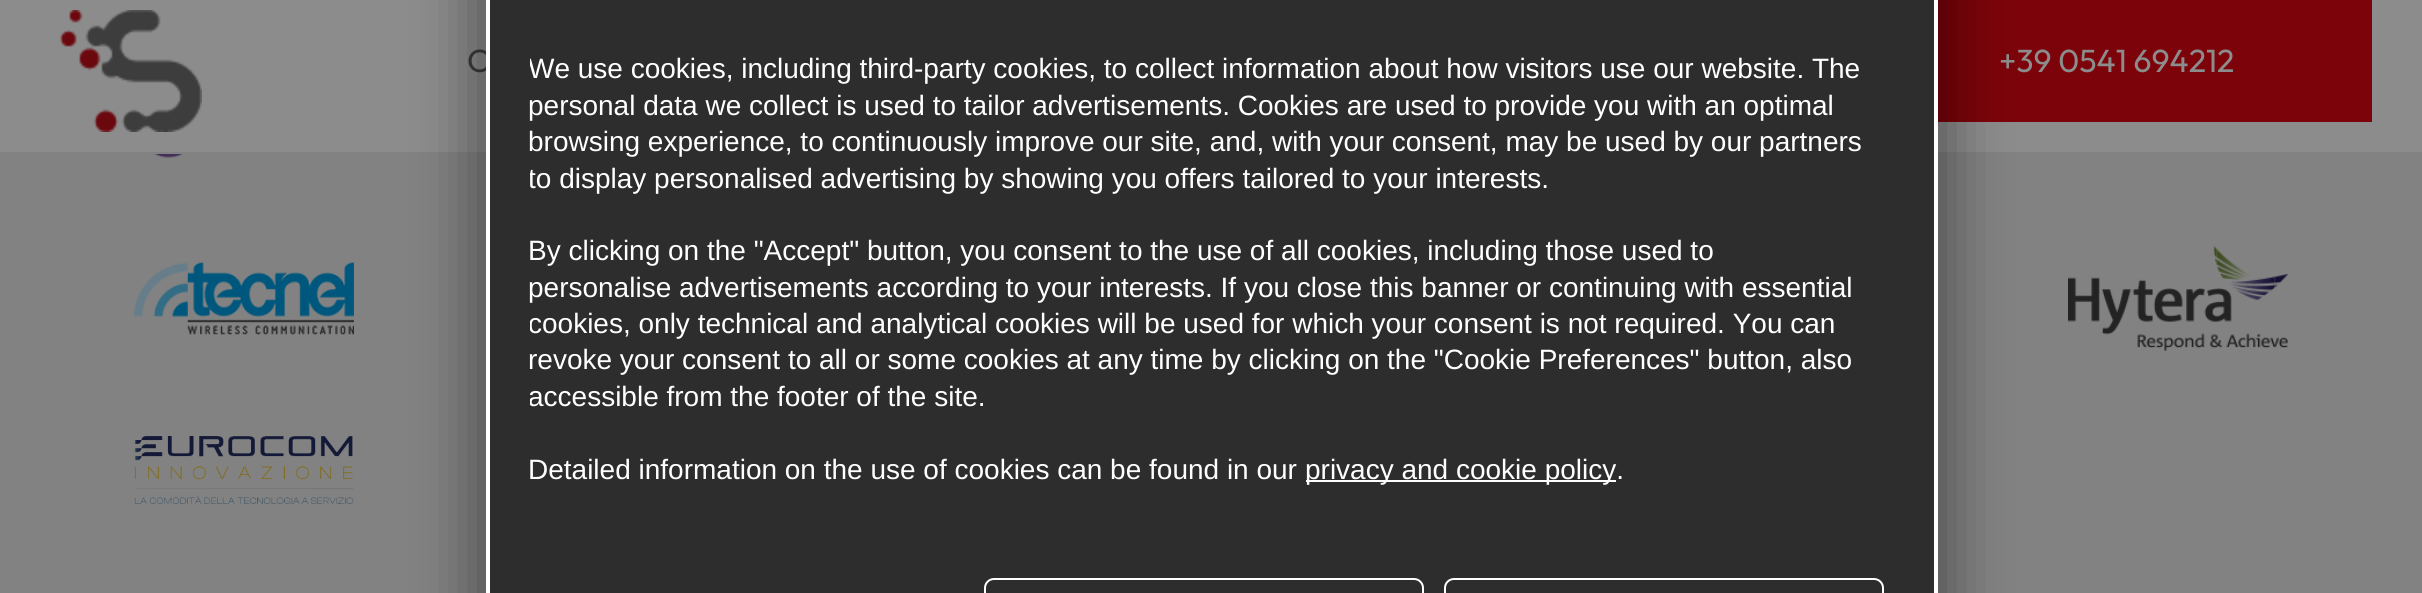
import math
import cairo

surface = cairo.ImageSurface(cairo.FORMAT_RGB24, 2422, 593)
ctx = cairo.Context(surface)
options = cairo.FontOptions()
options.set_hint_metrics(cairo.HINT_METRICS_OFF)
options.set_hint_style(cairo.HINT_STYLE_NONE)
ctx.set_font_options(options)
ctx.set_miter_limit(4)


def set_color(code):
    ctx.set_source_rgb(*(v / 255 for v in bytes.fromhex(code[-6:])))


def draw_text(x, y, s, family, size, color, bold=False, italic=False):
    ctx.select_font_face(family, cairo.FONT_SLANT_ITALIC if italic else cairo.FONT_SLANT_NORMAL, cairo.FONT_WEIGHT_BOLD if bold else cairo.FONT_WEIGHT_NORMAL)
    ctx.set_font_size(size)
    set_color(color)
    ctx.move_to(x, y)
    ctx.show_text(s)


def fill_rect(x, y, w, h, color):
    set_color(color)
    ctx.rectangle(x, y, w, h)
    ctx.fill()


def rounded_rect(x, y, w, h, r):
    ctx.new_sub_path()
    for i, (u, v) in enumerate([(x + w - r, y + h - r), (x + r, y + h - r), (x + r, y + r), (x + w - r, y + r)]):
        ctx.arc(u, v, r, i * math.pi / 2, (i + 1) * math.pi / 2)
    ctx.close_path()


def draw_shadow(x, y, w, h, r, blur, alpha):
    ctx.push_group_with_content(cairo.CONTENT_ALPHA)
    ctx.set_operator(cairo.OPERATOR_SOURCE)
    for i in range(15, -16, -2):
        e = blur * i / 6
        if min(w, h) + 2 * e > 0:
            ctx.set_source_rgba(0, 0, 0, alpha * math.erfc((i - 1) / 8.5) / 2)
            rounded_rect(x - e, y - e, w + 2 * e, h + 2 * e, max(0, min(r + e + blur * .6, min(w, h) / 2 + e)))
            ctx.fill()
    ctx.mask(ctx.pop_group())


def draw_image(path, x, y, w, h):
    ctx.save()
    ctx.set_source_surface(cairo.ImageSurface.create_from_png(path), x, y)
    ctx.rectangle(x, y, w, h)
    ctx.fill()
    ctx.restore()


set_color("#828282")
ctx.paint()
fill_rect(0, 0, 2422, 152, "#8c8c8c")
draw_image("assets/img1.png", 60, 10, 142, 122)
draw_text(467, 72, "C", "Outfit", 32, "#3e3c3c")
fill_rect(1938, 0, 434, 122, "#7c030a")
draw_text(1999, 72, "+39 0541 694212", "Outfit", 32, "#8c8c8c")
draw_image("assets/img2.png", 154, 154, 29, 4)
draw_image("assets/img3.png", 134, 262, 220, 73)
draw_image("assets/img4.png", 2068, 246, 220, 105)
draw_image("assets/img5.png", 134, 436, 220, 68)
set_color("#000000")
draw_shadow(472, -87, 1480, 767, 0, 29, 0.38)
set_color("#2d2d2d")
ctx.rectangle(488, -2, 1448, 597)
ctx.fill_preserve()
set_color("#ffffff")
ctx.set_line_width(4)
ctx.stroke()
ctx.save()
ctx.rectangle(530, 50, 1364, 472)
ctx.clip()
draw_text(528, 78, "We use cookies, including third-party cookies, to collect information about how visitors use our website. The", "Liberation Sans", 28, "#ffffff")
ctx.restore()
draw_text(528, 115, "personal data we collect is used to tailor advertisements. Cookies are used to provide you with an optimal", "Liberation Sans", 28, "#ffffff")
draw_text(528, 151, "browsing experience, to continuously improve our site, and, with your consent, may be used by our partners", "Liberation Sans", 28, "#ffffff")
ctx.save()
ctx.rectangle(530, 50, 1364, 472)
ctx.clip()
draw_text(528, 188, "to display personalised advertising by showing you offers tailored to your interests.", "Liberation Sans", 28, "#ffffff")
ctx.restore()
draw_text(528, 260, "By clicking on the \"Accept\" button, you consent to the use of all cookies, including those used to", "Liberation Sans", 28, "#ffffff")
draw_text(528, 297, "personalise advertisements according to your interests. If you close this banner or continuing with essential", "Liberation Sans", 28, "#ffffff")
ctx.save()
ctx.rectangle(530, 50, 1364, 472)
ctx.clip()
draw_text(528, 333, "cookies, only technical and analytical cookies will be used for which your consent is not required. You can", "Liberation Sans", 28, "#ffffff")
ctx.restore()
draw_text(528, 369, "revoke your consent to all or some cookies at any time by clicking on the \"Cookie Preferences\" button, also", "Liberation Sans", 28, "#ffffff")
ctx.save()
ctx.rectangle(530, 50, 1364, 472)
ctx.clip()
draw_text(528, 406, "accessible from the footer of the site.", "Liberation Sans", 28, "#ffffff")
ctx.restore()
draw_text(528, 479, "Detailed information on the use of cookies can be found in our", "Liberation Sans", 28, "#ffffff")
fill_rect(1306, 480, 310, 2, "#ffffff")
draw_text(1305, 479, "privacy and cookie policy.", "Liberation Sans", 28, "#ffffff")
rounded_rect(985, 579, 438, 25, 9)
ctx.set_line_width(2)
ctx.stroke()
rounded_rect(1445, 579, 438, 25, 9)
ctx.stroke()
surface.write_to_png("output.png")
